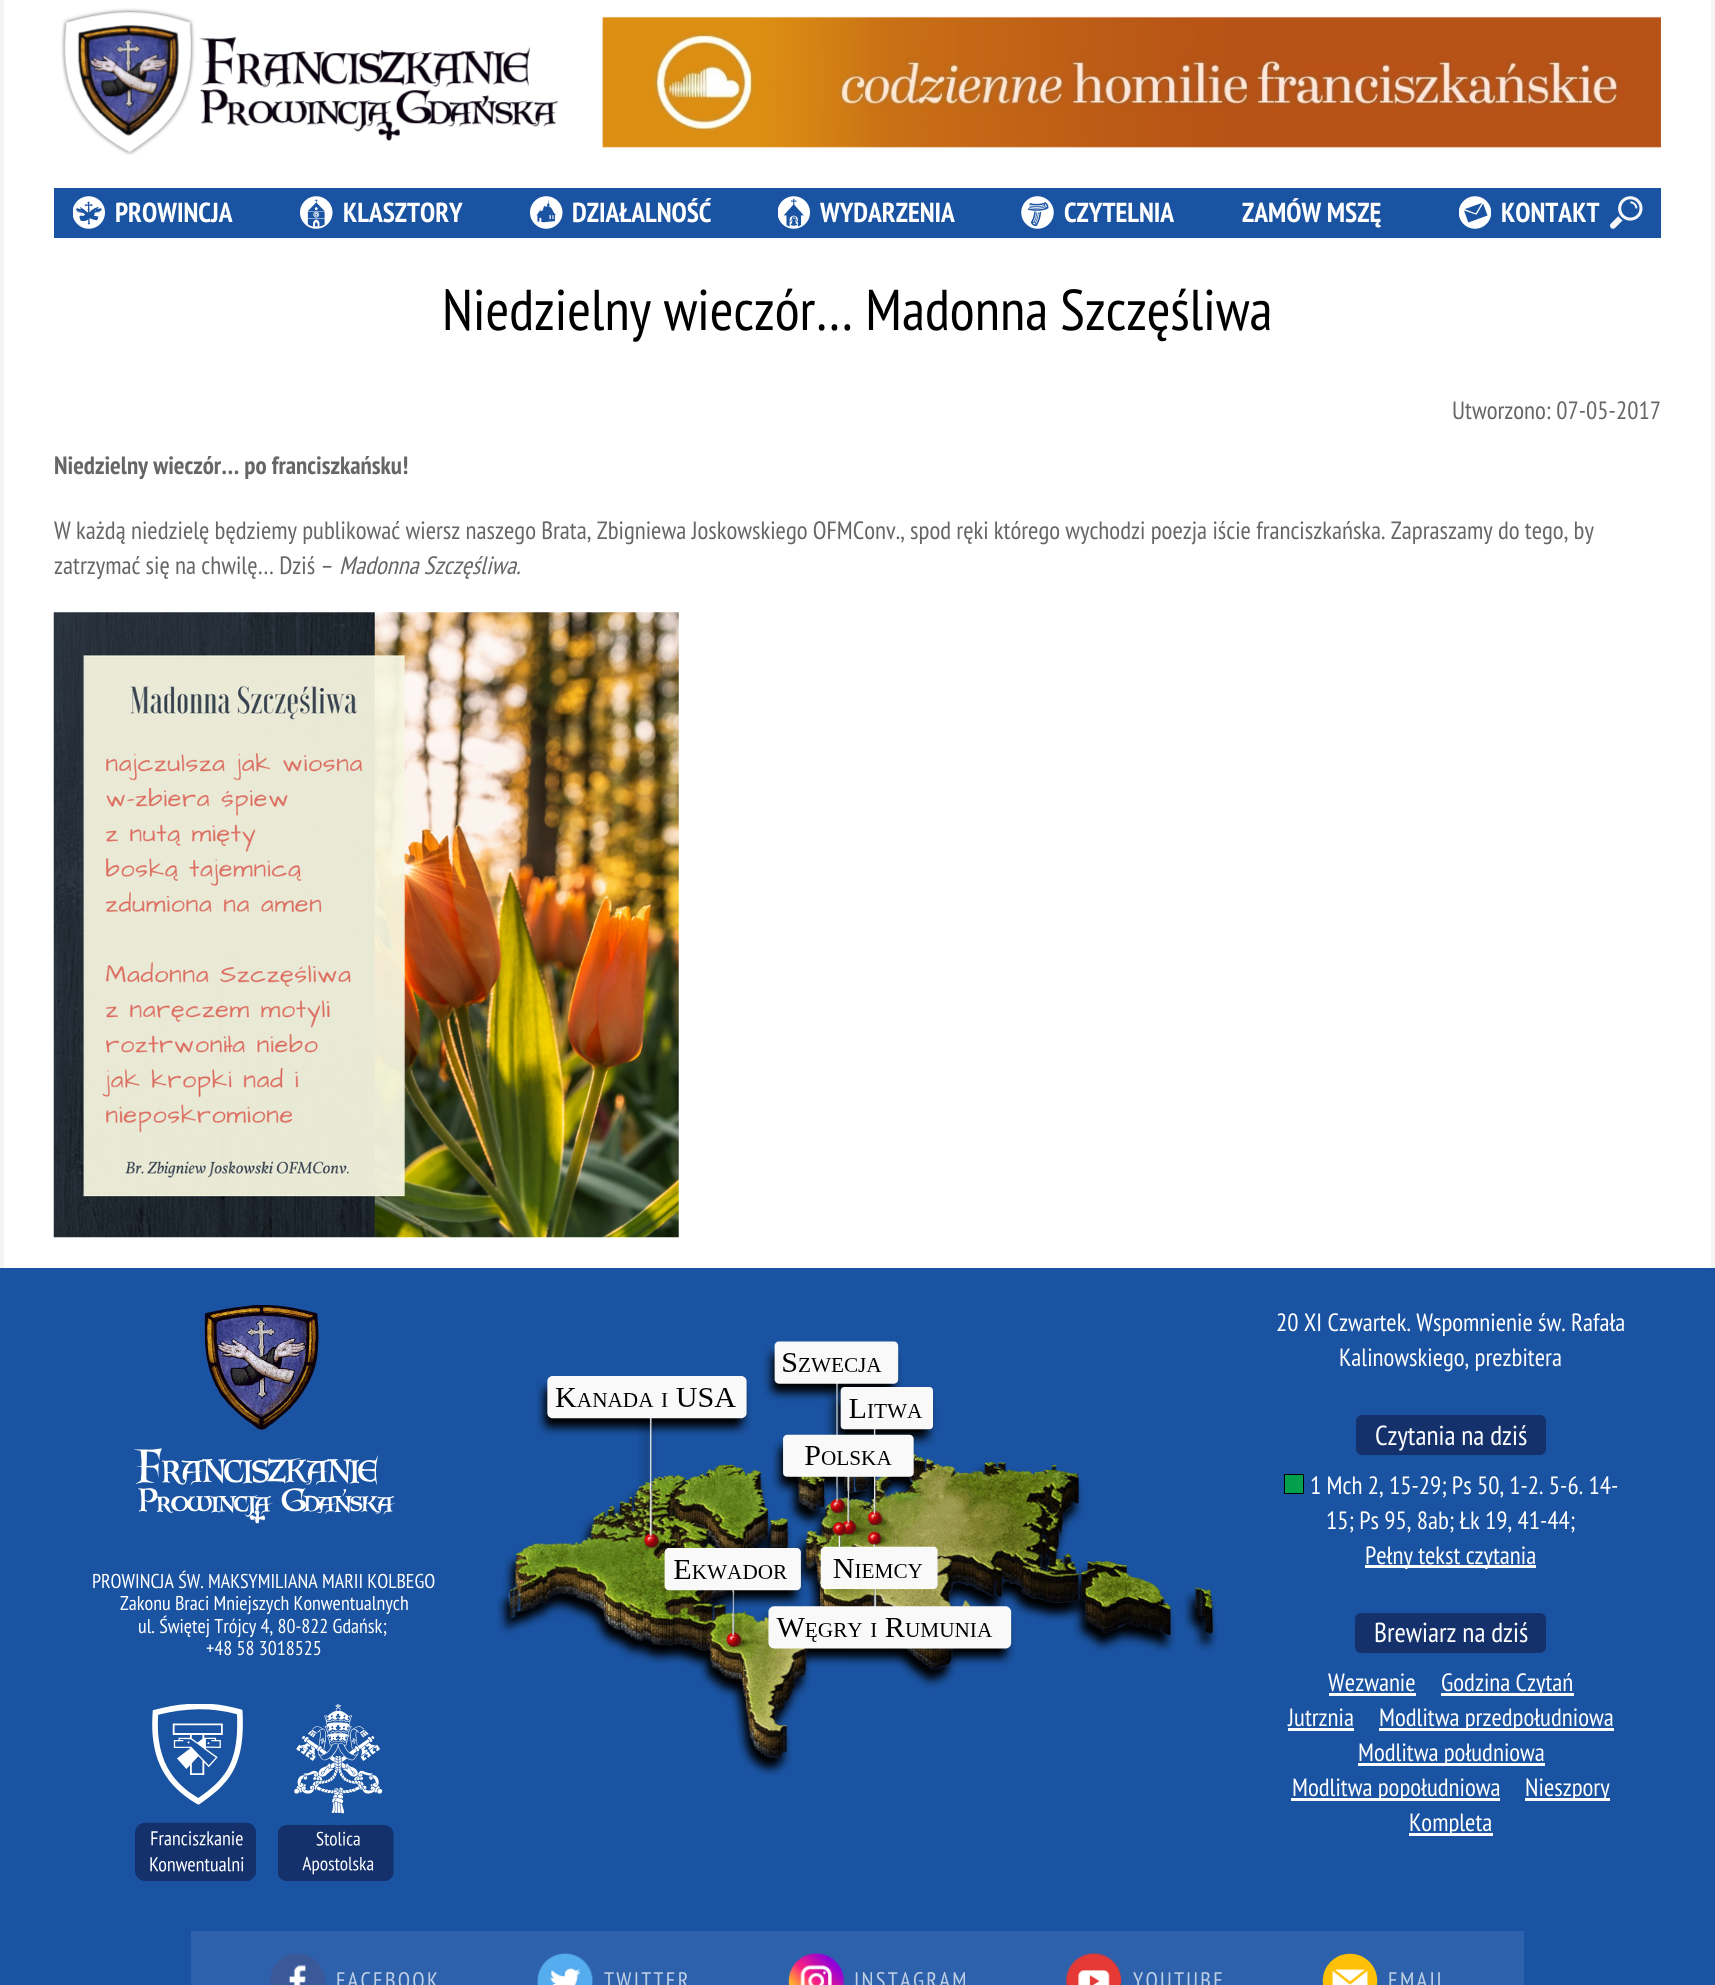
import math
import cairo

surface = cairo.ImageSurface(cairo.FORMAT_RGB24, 1715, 1985)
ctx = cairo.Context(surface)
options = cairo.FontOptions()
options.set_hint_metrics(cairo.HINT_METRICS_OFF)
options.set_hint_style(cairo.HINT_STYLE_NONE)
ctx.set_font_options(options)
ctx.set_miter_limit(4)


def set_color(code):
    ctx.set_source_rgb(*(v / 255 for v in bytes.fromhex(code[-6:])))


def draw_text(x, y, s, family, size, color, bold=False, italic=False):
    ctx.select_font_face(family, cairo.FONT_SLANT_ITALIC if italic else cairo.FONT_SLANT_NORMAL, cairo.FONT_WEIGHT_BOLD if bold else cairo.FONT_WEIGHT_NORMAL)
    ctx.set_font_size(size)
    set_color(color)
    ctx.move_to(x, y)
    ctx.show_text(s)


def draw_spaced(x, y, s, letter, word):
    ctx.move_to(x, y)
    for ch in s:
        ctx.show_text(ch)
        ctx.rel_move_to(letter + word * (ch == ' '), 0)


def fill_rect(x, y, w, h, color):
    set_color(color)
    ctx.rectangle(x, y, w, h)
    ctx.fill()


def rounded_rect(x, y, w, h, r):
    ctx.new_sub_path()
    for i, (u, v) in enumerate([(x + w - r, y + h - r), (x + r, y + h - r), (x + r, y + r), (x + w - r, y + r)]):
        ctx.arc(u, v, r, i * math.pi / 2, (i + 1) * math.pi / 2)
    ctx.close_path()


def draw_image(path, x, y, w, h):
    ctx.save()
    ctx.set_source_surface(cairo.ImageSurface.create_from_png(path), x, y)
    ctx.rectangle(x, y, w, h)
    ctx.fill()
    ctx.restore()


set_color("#f5f5f5")
ctx.paint()
fill_rect(4, 0, 1707, 1268, "#ffffff")
draw_image("assets/img1.png", 61, 8, 497, 147)
draw_image("assets/img2.png", 602, 16, 1059, 132)
fill_rect(54, 188, 1607, 50, "#1a53a1")
draw_image("assets/img3.png", 73, 196, 32, 33)
draw_text(115, 222, "PROWINCJA", "PT Sans Narrow", 27.5, "#ffffff", bold=True)
draw_image("assets/img4.png", 300, 196, 33, 33)
draw_text(343, 222, "KLASZTORY", "PT Sans Narrow", 27.5, "#ffffff", bold=True)
draw_image("assets/img5.png", 530, 196, 33, 33)
draw_text(572, 222, "DZIAŁALNOŚĆ", "PT Sans Narrow", 27.5, "#ffffff", bold=True)
draw_image("assets/img6.png", 778, 196, 32, 33)
draw_text(820, 222, "WYDARZENIA", "PT Sans Narrow", 27.5, "#ffffff", bold=True)
draw_image("assets/img7.png", 1021, 196, 33, 33)
draw_text(1064, 222, "CZYTELNIA", "PT Sans Narrow", 27.5, "#ffffff", bold=True)
draw_text(1242, 222, "ZAMÓW MSZĘ", "PT Sans Narrow", 27.5, "#ffffff", bold=True)
draw_image("assets/img8.png", 1459, 196, 32, 33)
draw_text(1501, 222, "KONTAKT", "PT Sans Narrow", 27.5, "#ffffff", bold=True)
draw_image("assets/img9.png", 1610, 196, 33, 33)
draw_text(442, 330, "Niedzielny wieczór… Madonna Szczęśliwa", "PT Sans Narrow", 57.5, "#000000")
draw_text(1452, 419, "Utworzono: 07-05-2017", "PT Sans Narrow", 25, "#666666")
draw_text(54, 474, "Niedzielny wieczór… po franciszkańsku!", "PT Sans Narrow", 25, "#666666", bold=True)
draw_text(54, 539, "W każdą niedzielę będziemy publikować wiersz naszego Brata, Zbigniewa Joskowskiego OFMConv., spod ręki którego wychodzi poezja iście franciszkańska. Zapraszamy do tego, by", "PT Sans Narrow", 25, "#666666")
draw_text(54, 574, "zatrzymać się na chwilę… Dziś –", "PT Sans Narrow", 25, "#666666")
draw_text(339, 574, "Madonna Szczęśliwa.", "PT Sans Narrow", 25, "#666666", italic=True)
draw_image("assets/img10.png", 53, 612, 626, 626)
fill_rect(0, 1268, 1715, 717, "#1a53a1")
draw_image("assets/img11.png", 133, 1305, 263, 219)
draw_text(92, 1588, "PROWINCJA ŚW. MAKSYMILIANA MARII KOLBEGO", "PT Sans Narrow", 20, "#ffffff")
draw_text(120, 1610, "Zakonu Braci Mniejszych Konwentualnych", "PT Sans Narrow", 20, "#ffffff")
draw_text(138, 1633, "ul. Świętej Trójcy 4, 80-822 Gdańsk;", "PT Sans Narrow", 20, "#ffffff")
draw_text(206, 1655, "+48 58 3018525", "PT Sans Narrow", 20, "#ffffff")
draw_image("assets/img12.png", 135, 1704, 121, 177)
draw_image("assets/img13.png", 278, 1704, 116, 177)
draw_image("assets/img14.png", 497, 1341, 720, 434)
draw_text(1276, 1331, "20 XI Czwartek. Wspomnienie św. Rafała", "PT Sans Narrow", 25, "#ffffff")
draw_text(1339, 1366, "Kalinowskiego, prezbitera", "PT Sans Narrow", 25, "#ffffff")
set_color("#14316c")
rounded_rect(1356, 1415, 190, 40, 6)
ctx.fill()
draw_text(1375, 1445, "Czytania na dziś", "PT Sans Narrow", 27.5, "#ffffff")
ctx.rectangle(1284.5, 1474.5, 19, 19)
set_color("#000000")
ctx.set_line_width(1)
ctx.stroke()
fill_rect(1285, 1475, 18, 18, "#029f4c")
draw_text(1310, 1494, "1 Mch 2, 15-29; Ps 50, 1-2. 5-6. 14-", "PT Sans Narrow", 25, "#ffffff")
draw_text(1326, 1529, "15; Ps 95, 8ab; Łk 19, 41-44;", "PT Sans Narrow", 25, "#ffffff")
fill_rect(1365, 1565, 171, 3, "#ffffff")
draw_text(1365, 1564, "Pełny tekst czytania", "PT Sans Narrow", 25, "#ffffff")
set_color("#14316c")
rounded_rect(1355, 1613, 191, 40, 6)
ctx.fill()
draw_text(1374, 1642, "Brewiarz na dziś", "PT Sans Narrow", 27.5, "#ffffff")
draw_text(1328, 1691, "Wezwanie", "PT Sans Narrow", 25, "#ffffff")
fill_rect(1329, 1693, 87, 3, "#ffffff")
fill_rect(1441, 1693, 133, 3, "#ffffff")
draw_text(1441, 1691, "Godzina Czytań", "PT Sans Narrow", 25, "#ffffff")
draw_text(1288, 1726, "Jutrznia", "PT Sans Narrow", 25, "#ffffff")
fill_rect(1288, 1728, 66, 3, "#ffffff")
fill_rect(1379, 1728, 235, 3, "#ffffff")
draw_text(1379, 1726, "Modlitwa przedpołudniowa", "PT Sans Narrow", 25, "#ffffff")
fill_rect(1358, 1763, 187, 3, "#ffffff")
draw_text(1358, 1761, "Modlitwa południowa", "PT Sans Narrow", 25, "#ffffff")
fill_rect(1291, 1798, 209, 3, "#ffffff")
draw_text(1292, 1796, "Modlitwa popołudniowa", "PT Sans Narrow", 25, "#ffffff")
fill_rect(1525, 1798, 85, 3, "#ffffff")
draw_text(1525, 1796, "Nieszpory", "PT Sans Narrow", 25, "#ffffff")
fill_rect(1409, 1833, 84, 3, "#ffffff")
draw_text(1409, 1831, "Kompleta", "PT Sans Narrow", 25, "#ffffff")
fill_rect(191, 1931, 1333, 54, "#2d61ab")
draw_image("assets/img15.png", 270, 1953, 55, 32)
ctx.set_font_size(22.5)
set_color("#bfcfe5")
draw_spaced(336, 1988, "FACEBOOK", 2.25, 0)
draw_image("assets/img16.png", 537, 1953, 56, 32)
draw_spaced(604, 1988, "TWITTER", 2.25, 0)
draw_image("assets/img17.png", 788, 1953, 57, 32)
draw_spaced(854, 1988, "INSTAGRAM", 2.25, 0)
draw_image("assets/img18.png", 1065, 1952, 57, 33)
draw_spaced(1133, 1988, "YOUTUBE", 2.25, 0)
draw_image("assets/img19.png", 1322, 1953, 56, 32)
draw_spaced(1388, 1988, "EMAIL", 2.25, 0)
surface.write_to_png("output.png")
